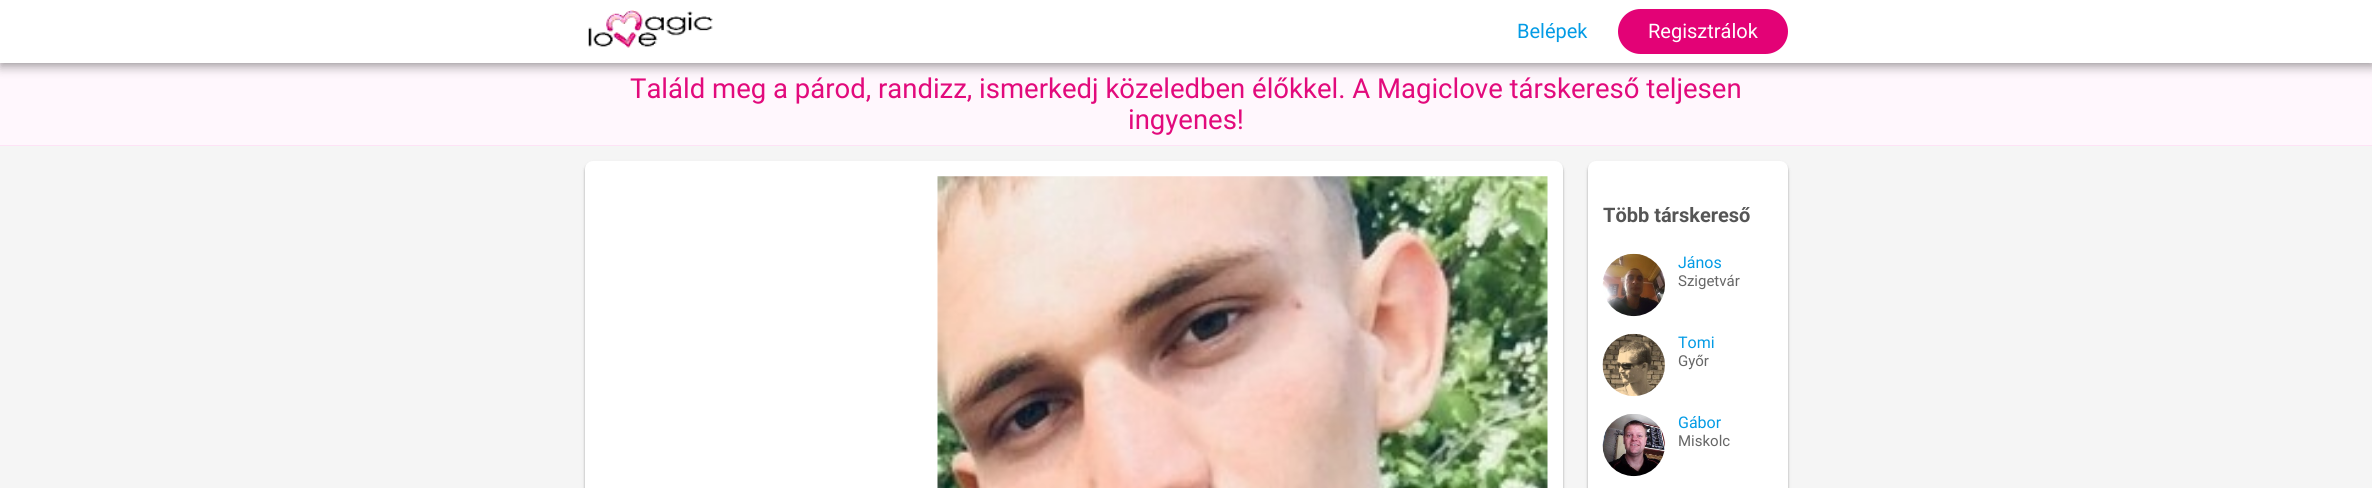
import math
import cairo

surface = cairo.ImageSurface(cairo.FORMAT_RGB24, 2372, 488)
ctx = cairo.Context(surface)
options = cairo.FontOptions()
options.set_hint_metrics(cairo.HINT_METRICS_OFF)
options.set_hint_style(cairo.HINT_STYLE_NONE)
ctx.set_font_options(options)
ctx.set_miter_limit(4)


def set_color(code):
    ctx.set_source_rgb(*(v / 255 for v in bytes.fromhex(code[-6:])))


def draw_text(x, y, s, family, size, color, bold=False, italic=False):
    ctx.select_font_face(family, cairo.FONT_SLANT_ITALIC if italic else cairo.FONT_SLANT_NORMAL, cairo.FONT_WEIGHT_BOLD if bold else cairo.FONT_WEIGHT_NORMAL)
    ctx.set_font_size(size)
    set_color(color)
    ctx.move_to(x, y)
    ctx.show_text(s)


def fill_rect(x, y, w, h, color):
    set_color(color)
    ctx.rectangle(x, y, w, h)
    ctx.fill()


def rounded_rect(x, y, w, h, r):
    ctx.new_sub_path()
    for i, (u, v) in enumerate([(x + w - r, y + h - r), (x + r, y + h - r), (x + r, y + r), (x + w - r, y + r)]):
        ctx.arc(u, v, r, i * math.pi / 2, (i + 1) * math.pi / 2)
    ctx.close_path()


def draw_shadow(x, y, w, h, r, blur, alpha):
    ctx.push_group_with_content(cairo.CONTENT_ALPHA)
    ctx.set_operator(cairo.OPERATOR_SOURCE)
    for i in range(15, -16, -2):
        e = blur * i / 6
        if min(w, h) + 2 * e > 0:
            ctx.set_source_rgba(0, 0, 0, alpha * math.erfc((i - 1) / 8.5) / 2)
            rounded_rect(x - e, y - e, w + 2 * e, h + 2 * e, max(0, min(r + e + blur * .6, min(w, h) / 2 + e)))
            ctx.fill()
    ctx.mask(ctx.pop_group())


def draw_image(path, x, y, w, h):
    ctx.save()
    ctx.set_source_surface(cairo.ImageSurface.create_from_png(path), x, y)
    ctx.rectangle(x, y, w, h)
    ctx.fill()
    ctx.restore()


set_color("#ffffff")
ctx.paint()
fill_rect(0, 63, 2372, 82, "#fff7fd")
ctx.save()
ctx.set_fill_rule(cairo.FILL_RULE_EVEN_ODD)
ctx.new_path()
ctx.move_to(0, 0)
ctx.line_to(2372, 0)
ctx.line_to(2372, 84)
ctx.line_to(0, 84)
ctx.close_path()
ctx.move_to(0, 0)
ctx.line_to(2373, 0)
ctx.line_to(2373, 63)
ctx.line_to(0, 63)
ctx.close_path()
ctx.clip()
set_color("#000000")
draw_shadow(0, 5, 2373, 63, 0, 5, 0.28)
ctx.restore()
ctx.save()
ctx.set_fill_rule(cairo.FILL_RULE_EVEN_ODD)
ctx.new_path()
ctx.move_to(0, 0)
ctx.line_to(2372, 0)
ctx.line_to(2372, 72)
ctx.line_to(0, 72)
ctx.close_path()
ctx.move_to(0, 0)
ctx.line_to(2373, 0)
ctx.line_to(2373, 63)
ctx.line_to(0, 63)
ctx.close_path()
ctx.clip()
set_color("#000000")
draw_shadow(0, 0, 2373, 63, 0, 2.5, 0.14)
ctx.restore()
ctx.set_source_rgba(1, 1, 1, 0.95)
ctx.rectangle(0, 62, 2372, 1)
ctx.fill()
draw_image("assets/img1.png", 588, 10, 125, 38)
draw_text(1517, 38, "Belépek", "Roboto", 20, "#039be5")
set_color("#e30276")
rounded_rect(1618, 9, 170, 45, 22.5)
ctx.fill()
draw_text(1648, 38, "Regisztrálok", "Roboto", 20, "#ffffff")
fill_rect(0, 145, 2372, 1, "#fee3f6")
draw_text(630, 98, "Találd meg a párod, randizz, ismerkedj közeledben élőkkel. A Magiclove társkereső teljesen", "Roboto", 27.5, "#e20a7c")
draw_text(1128, 129, "ingyenes!", "Roboto", 27.5, "#e20a7c")
fill_rect(0, 146, 2372, 342, "#f5f5f5")
set_color("#000000")
draw_shadow(585, 163, 978, 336, 8, 1, 0.24)
draw_shadow(585, 163, 978, 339, 8, 2, 0.12)
set_color("#ffffff")
rounded_rect(585, 161, 978, 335, 8)
ctx.fill()
draw_image("assets/img2.png", 937, 176, 611, 312)
set_color("#000000")
draw_shadow(1588, 163, 200, 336, 8, 1, 0.24)
draw_shadow(1588, 163, 200, 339, 8, 2, 0.12)
set_color("#ffffff")
rounded_rect(1588, 161, 200, 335, 8)
ctx.fill()
draw_text(1603, 222, "Több társkereső", "Roboto", 20, "#555555", bold=True)
draw_image("assets/img3.png", 1602, 253, 63, 64)
draw_text(1678, 268, "János", "Roboto", 16, "#039be5")
draw_text(1678, 286, "Szigetvár", "Roboto", 15, "#666666")
draw_image("assets/img4.png", 1602, 333, 63, 64)
draw_text(1678, 348, "Tomi", "Roboto", 16, "#039be5")
draw_text(1678, 366, "Győr", "Roboto", 15, "#666666")
draw_image("assets/img5.png", 1602, 414, 63, 63)
draw_text(1678, 428, "Gábor", "Roboto", 16, "#039be5")
draw_text(1678, 446, "Miskolc", "Roboto", 15, "#666666")
surface.write_to_png("output.png")
